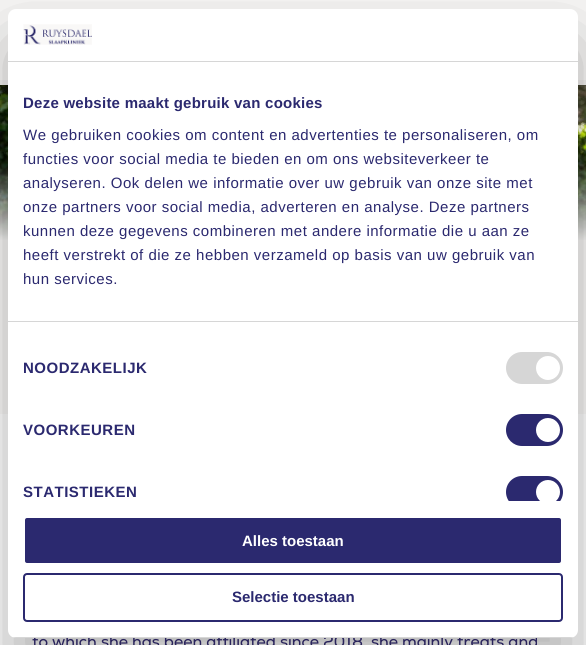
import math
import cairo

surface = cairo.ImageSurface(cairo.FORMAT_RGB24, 586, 645)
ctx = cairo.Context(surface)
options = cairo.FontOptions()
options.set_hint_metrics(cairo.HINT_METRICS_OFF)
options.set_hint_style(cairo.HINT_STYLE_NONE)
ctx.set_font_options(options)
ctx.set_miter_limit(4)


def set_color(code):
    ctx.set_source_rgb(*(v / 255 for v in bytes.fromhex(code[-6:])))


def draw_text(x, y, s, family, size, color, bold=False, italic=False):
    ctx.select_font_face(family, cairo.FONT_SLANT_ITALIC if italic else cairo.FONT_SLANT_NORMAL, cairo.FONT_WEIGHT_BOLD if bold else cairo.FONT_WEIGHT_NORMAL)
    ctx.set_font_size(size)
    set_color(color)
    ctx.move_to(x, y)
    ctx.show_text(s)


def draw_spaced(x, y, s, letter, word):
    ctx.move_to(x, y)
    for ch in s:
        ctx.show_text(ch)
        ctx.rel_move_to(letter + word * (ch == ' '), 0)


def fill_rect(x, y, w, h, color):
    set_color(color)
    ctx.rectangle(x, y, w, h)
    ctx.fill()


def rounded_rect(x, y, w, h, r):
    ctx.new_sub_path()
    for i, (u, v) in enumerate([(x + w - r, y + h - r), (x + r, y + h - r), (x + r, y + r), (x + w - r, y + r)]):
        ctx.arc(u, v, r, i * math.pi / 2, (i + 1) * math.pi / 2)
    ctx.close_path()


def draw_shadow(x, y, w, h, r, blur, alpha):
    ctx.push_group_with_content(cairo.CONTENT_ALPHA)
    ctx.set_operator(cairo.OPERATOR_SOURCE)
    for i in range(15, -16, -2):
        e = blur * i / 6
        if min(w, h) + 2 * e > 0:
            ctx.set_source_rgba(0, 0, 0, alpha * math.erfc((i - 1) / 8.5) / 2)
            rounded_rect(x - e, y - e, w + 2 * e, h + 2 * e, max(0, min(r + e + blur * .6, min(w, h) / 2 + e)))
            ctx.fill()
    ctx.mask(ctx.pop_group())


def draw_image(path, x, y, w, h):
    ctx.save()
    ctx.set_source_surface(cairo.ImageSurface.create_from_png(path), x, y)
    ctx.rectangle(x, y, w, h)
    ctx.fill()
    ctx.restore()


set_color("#ffffff")
ctx.paint()
fill_rect(0, 0, 586, 80, "#f9f8f7")
fill_rect(0, 80, 586, 5, "#f2f0ee")
fill_rect(0, 240, 586, 174, "#f9f8f7")
draw_image("assets/img2.png", 0, 85, 586, 155)
set_color("#000000")
draw_shadow(8, 41, 570, 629, 8, 34, 0.3)
draw_text(32, 647, "to which she has been affiliated since 2018, she mainly treats and", "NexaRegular", 16, "#29235b")
set_color("#ffffff")
rounded_rect(8, 9, 570, 629, 8)
ctx.fill()
fill_rect(8, 61, 570, 1, "#d6d6d6")
draw_image("assets/img1.png", 23, 24, 69, 21)
fill_rect(8, 321, 570, 1, "#d6d6d6")
ctx.select_font_face("Liberation Sans", cairo.FONT_SLANT_NORMAL, cairo.FONT_WEIGHT_BOLD)
ctx.set_font_size(15)
set_color("#2b296f")
draw_spaced(23, 108, "Deze website maakt gebruik van cookies", 0.25, 0)
ctx.select_font_face("Liberation Sans")
draw_spaced(23, 140, "We gebruiken cookies om content en advertenties te personaliseren, om", 0.5, 0)
draw_spaced(23, 164, "functies voor social media te bieden en om ons websiteverkeer te", 0.5, 0)
draw_spaced(23, 188, "analyseren. Ook delen we informatie over uw gebruik van onze site met", 0.5, 0)
draw_spaced(23, 212, "onze partners voor social media, adverteren en analyse. Deze partners", 0.5, 0)
draw_spaced(23, 236, "kunnen deze gegevens combineren met andere informatie die u aan ze", 0.5, 0)
draw_spaced(23, 260, "heeft verstrekt of die ze hebben verzameld op basis van uw gebruik van", 0.5, 0)
draw_spaced(23, 284, "hun services.", 0.5, 0)
ctx.select_font_face("Liberation Sans", cairo.FONT_SLANT_NORMAL, cairo.FONT_WEIGHT_BOLD)
draw_spaced(23, 373, "NOODZAKELIJK", 0.5, 0)
set_color("#d6d6d6")
rounded_rect(506, 352, 57, 32, 16)
ctx.fill()
set_color("#ffffff")
ctx.arc(548, 368, 12, 0, 2 * math.pi)
ctx.fill()
set_color("#2b296f")
draw_spaced(23, 435, "VOORKEUREN", 0.5, 0)
rounded_rect(506, 414, 57, 32, 16)
ctx.fill()
set_color("#ffffff")
ctx.arc(548, 430, 12, 0, 2 * math.pi)
ctx.fill()
set_color("#2b296f")
draw_spaced(23, 497, "STATISTIEKEN", 0.5, 0)
ctx.save()
ctx.rectangle(8, 62, 570, 439)
ctx.clip()
rounded_rect(506, 476, 57, 32, 16)
ctx.fill()
set_color("#ffffff")
ctx.arc(548, 492, 12, 0, 2 * math.pi)
ctx.fill()
ctx.restore()
ctx.save()
rounded_rect(8, 9, 570, 629, 8)
ctx.clip()
fill_rect(8, 637, 570, 1, "#d6d6d6")
ctx.restore()
rounded_rect(24, 517, 538, 47, 3)
ctx.fill_preserve()
set_color("#ffffff")
ctx.stroke()
draw_text(242, 546, "Alles toestaan", "Liberation Sans", 15, "#ffffff", bold=True)
rounded_rect(24, 574, 538, 47, 3)
set_color("#2b296f")
ctx.stroke()
draw_text(232, 602, "Selectie toestaan", "Liberation Sans", 15, "#2b296f", bold=True)
surface.write_to_png("output.png")
